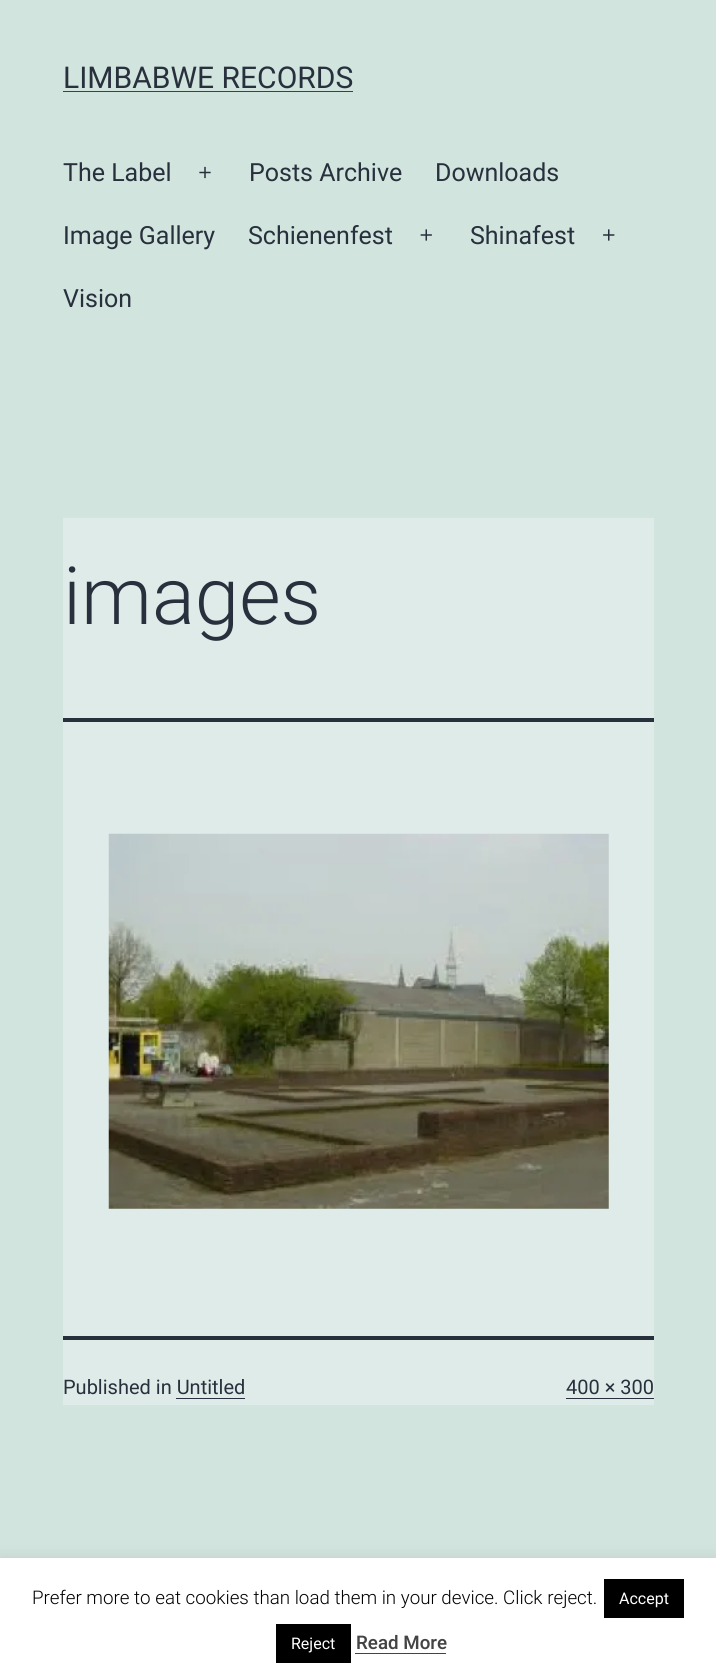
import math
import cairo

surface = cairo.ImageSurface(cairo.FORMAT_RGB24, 716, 1677)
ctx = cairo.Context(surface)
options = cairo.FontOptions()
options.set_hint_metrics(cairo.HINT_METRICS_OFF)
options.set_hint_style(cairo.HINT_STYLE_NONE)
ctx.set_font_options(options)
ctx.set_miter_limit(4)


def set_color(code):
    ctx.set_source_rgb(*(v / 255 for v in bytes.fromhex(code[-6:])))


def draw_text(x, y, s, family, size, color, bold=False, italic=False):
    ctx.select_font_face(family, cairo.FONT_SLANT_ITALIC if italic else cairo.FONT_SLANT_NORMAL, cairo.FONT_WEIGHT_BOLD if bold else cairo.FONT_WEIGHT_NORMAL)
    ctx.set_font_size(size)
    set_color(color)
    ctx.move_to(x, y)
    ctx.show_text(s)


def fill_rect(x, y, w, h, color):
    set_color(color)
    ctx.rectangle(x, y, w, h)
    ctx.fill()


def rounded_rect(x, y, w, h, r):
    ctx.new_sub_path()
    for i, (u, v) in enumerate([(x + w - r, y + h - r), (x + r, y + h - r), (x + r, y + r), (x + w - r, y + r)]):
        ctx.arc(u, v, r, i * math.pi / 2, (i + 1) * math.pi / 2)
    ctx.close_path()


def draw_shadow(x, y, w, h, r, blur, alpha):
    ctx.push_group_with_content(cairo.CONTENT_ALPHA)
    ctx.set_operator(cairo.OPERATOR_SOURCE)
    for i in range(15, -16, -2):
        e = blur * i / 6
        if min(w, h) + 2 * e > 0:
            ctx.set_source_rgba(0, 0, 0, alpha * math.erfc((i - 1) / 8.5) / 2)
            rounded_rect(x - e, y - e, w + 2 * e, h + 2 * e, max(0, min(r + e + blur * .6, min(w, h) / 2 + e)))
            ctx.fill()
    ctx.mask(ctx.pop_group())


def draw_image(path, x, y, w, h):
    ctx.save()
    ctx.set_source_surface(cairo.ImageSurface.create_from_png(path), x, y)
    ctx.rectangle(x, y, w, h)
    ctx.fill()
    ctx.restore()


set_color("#d1e4dd")
ctx.paint()
draw_text(63, 88, "LIMBABWE RECORDS", "Roboto", 30, "#28303d")
fill_rect(63, 91, 290, 1, "#39414d")
draw_text(63, 181, "The Label", "Roboto", 25, "#28303d")
draw_image("assets/img1.png", 199, 166, 12, 13)
draw_text(249, 181, "Posts Archive", "Roboto", 25, "#28303d")
draw_text(435, 181, "Downloads", "Roboto", 25, "#28303d")
draw_text(63, 244, "Image Gallery", "Roboto", 25, "#28303d")
draw_text(248, 244, "Schienenfest", "Roboto", 25, "#28303d")
draw_image("assets/img2.png", 420, 229, 12, 12)
draw_text(470, 244, "Shinafest", "Roboto", 25, "#28303d")
draw_image("assets/img3.png", 603, 229, 12, 12)
draw_text(63, 307, "Vision", "Roboto", 25, "#28303d")
fill_rect(63, 518, 591, 887, "#dfebe8")
fill_rect(63, 718, 591, 4, "#28303d")
draw_text(63, 624, "images", "Roboto Light", 80, "#28303d")
draw_image("assets/img4.png", 108, 833, 501, 376)
fill_rect(63, 1336, 591, 4, "#28303d")
draw_text(63, 1394, "Published in Untitled", "Roboto", 20, "#28303d")
fill_rect(176, 1398, 69, 1, "#28303d")
draw_text(566, 1394, "400 × 300", "Roboto", 20, "#28303d")
fill_rect(566, 1398, 88, 1, "#28303d")
set_color("#acabab")
draw_shadow(0, 1556, 716, 120, 0, 6, 0.3)
fill_rect(0, 1558, 716, 119, "#ffffff")
draw_text(32, 1604, "Prefer more to eat cookies than load them in your device. Click reject.", "Roboto Light", 18.75, "#000000")
fill_rect(604, 1579, 80, 39, "#000000")
draw_text(619, 1604, "Accept", "Roboto", 16, "#ffffff")
fill_rect(276, 1624, 75, 39, "#000000")
draw_text(291, 1649, "Reject", "Roboto", 16, "#ffffff")
draw_text(356, 1649, "Read More", "Roboto Medium", 18.75, "#444444")
fill_rect(355, 1653, 91, 1, "#444444")
surface.write_to_png("output.png")
